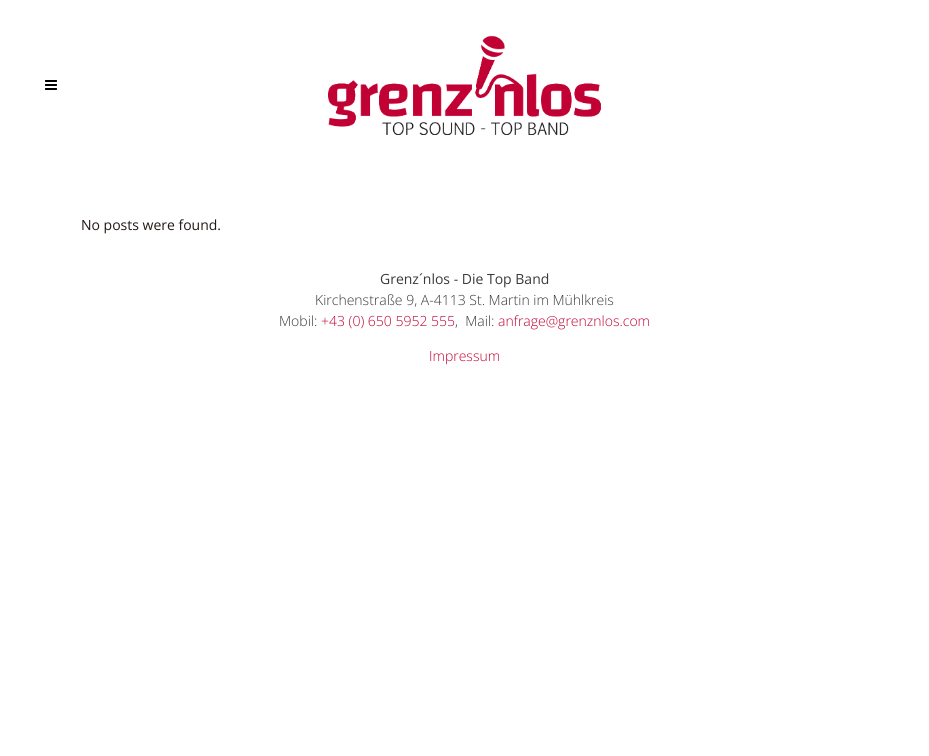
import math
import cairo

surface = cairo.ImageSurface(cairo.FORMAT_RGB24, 929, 756)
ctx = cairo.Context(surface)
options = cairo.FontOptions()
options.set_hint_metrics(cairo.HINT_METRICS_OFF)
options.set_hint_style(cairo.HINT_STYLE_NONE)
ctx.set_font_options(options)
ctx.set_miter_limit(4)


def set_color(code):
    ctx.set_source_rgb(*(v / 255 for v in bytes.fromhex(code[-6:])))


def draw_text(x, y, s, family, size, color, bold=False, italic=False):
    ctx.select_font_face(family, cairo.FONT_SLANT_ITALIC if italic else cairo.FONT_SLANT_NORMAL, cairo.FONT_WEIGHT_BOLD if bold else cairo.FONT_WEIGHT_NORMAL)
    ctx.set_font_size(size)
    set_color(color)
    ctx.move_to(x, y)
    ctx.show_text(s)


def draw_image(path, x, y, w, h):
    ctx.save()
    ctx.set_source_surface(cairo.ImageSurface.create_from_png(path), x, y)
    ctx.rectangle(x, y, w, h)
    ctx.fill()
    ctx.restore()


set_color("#ffffff")
ctx.paint()
draw_image("assets/img1.png", 45, 80, 12, 10)
draw_image("assets/img2.png", 328, 35, 273, 100)
draw_text(81, 230, "No posts were found.", "Open Sans", 14, "#211915")
draw_text(380, 284, "Grenz´nlos - Die Top Band", "Open Sans", 14, "#393939")
draw_text(315, 305, "Kirchenstraße 9, A-4113 St. Martin im Mühlkreis", "Open Sans Light", 14, "#393939")
draw_text(279, 326, "Mobil:", "Open Sans Light", 14, "#393939")
draw_text(321, 326, "+43 (0) 650 5952 555", "Open Sans Light", 14, "#c10134")
draw_text(455, 326, ",  Mail:", "Open Sans Light", 14, "#393939")
draw_text(498, 326, "anfrage@grenznlos.com", "Open Sans Light", 14, "#c10134")
draw_text(429, 361, "Impressum", "Open Sans Light", 14, "#c10134")
surface.write_to_png("output.png")
